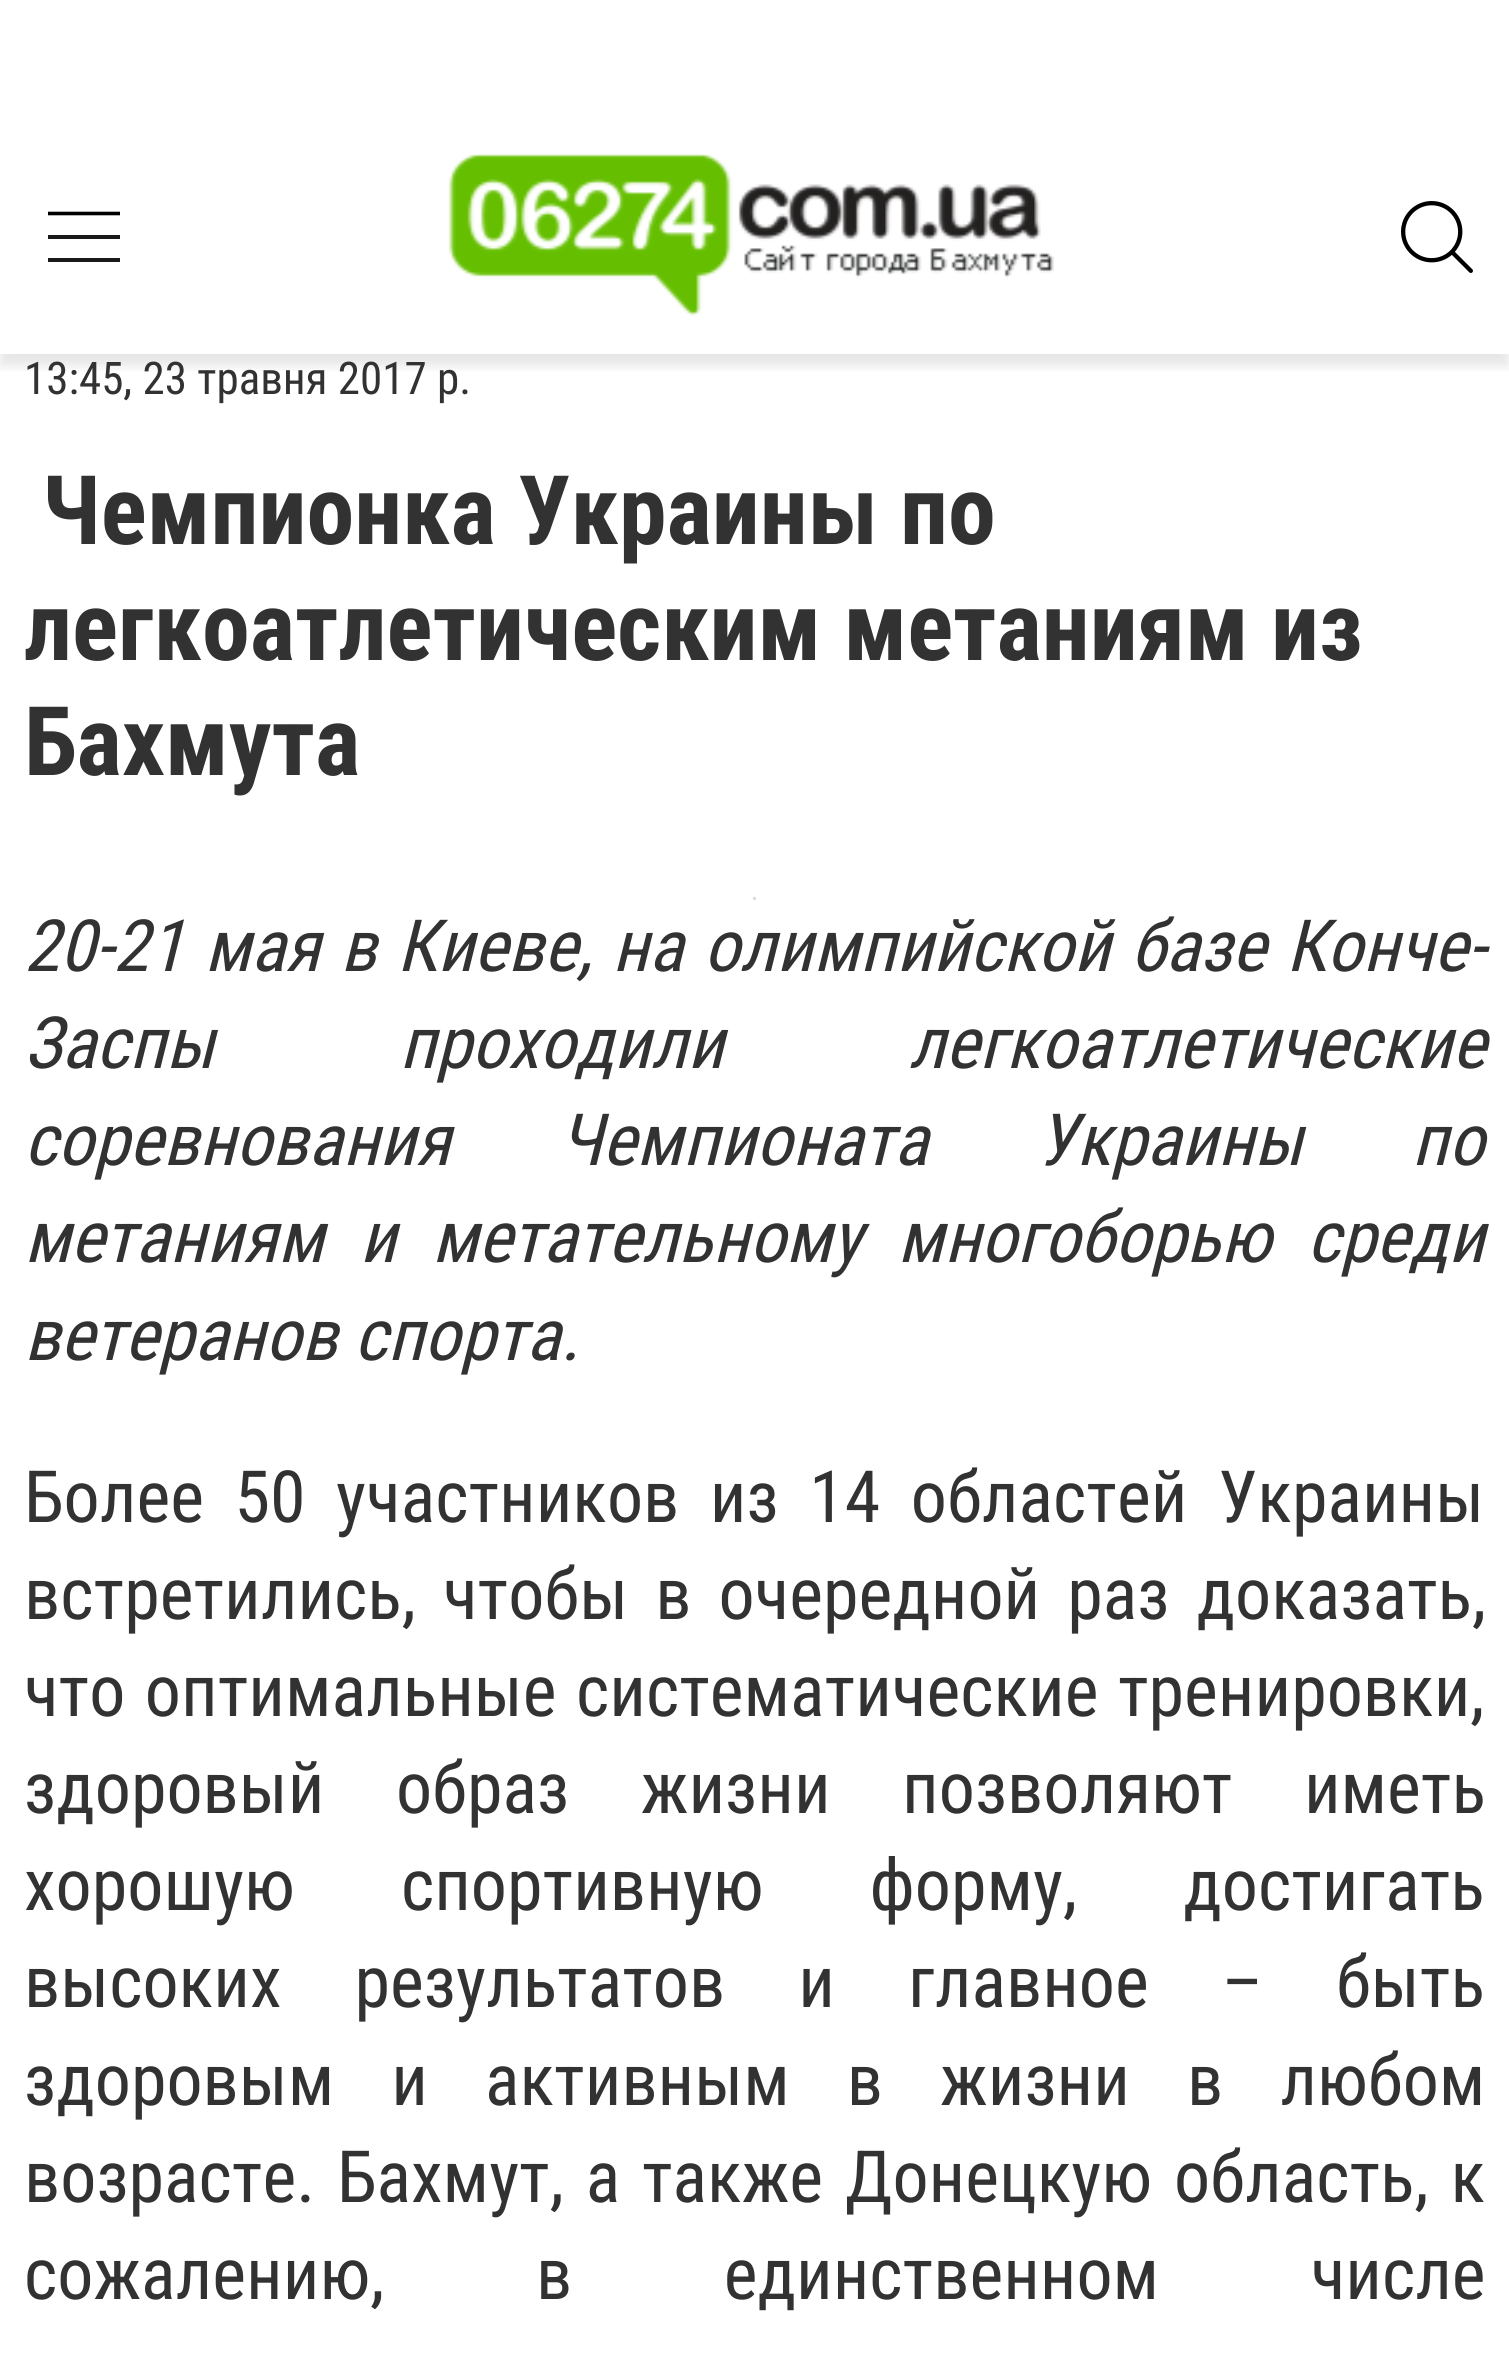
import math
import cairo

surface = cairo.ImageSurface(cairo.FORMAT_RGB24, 1509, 2366)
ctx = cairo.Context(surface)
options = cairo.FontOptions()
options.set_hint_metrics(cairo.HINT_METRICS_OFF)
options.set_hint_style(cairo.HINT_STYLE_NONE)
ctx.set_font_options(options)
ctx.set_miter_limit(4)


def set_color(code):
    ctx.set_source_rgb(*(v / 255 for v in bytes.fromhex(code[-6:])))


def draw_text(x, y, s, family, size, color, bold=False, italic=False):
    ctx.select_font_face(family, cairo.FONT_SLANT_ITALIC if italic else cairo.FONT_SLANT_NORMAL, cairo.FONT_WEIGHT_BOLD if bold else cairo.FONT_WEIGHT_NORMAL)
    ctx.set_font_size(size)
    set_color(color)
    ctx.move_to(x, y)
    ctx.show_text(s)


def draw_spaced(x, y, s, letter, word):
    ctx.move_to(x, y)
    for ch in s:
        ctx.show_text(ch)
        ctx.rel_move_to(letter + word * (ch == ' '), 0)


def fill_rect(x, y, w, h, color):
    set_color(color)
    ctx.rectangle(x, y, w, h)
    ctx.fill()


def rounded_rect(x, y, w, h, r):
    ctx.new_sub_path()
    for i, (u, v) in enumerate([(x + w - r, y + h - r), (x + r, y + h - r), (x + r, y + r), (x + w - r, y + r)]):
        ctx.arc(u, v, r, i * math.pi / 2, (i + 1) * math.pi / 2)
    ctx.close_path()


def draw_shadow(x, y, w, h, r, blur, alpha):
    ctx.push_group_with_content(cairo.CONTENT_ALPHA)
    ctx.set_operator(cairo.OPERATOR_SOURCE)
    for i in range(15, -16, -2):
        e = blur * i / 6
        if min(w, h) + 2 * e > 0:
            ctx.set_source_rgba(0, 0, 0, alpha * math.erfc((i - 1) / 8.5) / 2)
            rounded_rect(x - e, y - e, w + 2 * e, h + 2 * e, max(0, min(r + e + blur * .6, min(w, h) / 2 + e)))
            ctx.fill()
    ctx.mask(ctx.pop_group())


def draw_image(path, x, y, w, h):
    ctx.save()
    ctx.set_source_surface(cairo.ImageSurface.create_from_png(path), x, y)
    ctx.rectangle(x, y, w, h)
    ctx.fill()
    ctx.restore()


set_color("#ffffff")
ctx.paint()
ctx.save()
ctx.rectangle(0, 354, 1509, 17)
ctx.clip()
set_color("#000000")
draw_shadow(0, 117, 1509, 249, 0, 6, 0.1)
ctx.restore()
ctx.new_path()
ctx.move_to(48, 213.5)
ctx.line_to(120, 213.5)
set_color("#000000")
ctx.set_line_width(3.6)
ctx.stroke()
fill_rect(48, 235, 72, 4, "#1a1a1a")
fill_rect(48, 258, 72, 4, "#1a1a1a")
draw_image("assets/img1.png", 448, 153, 606, 163)
draw_image("assets/img2.png", 1401, 201, 72, 72)
draw_text(24, 394, "13:45, 23 травня 2017 р.", "Roboto Condensed", 45, "#323232")
draw_text(42, 544, "Чемпионка Украины по", "Roboto Condensed", 96, "#323232", bold=True)
draw_text(24, 660, "легкоатлетическим метаниям из", "Roboto Condensed", 96, "#323232", bold=True)
draw_text(24, 775, "Бахмута", "Roboto Condensed", 96, "#323232", bold=True)
fill_rect(753, 897, 3, 3, "#dcdcdc")
ctx.select_font_face("Roboto Condensed", cairo.FONT_SLANT_ITALIC)
ctx.set_font_size(72)
set_color("#323232")
draw_spaced(24, 971, "20-21 мая в Киеве, на олимпийской базе Конче-", 0, 3.75)
draw_spaced(24, 1068, "Заспы проходили легкоатлетические", 0, 168)
draw_spaced(24, 1165, "соревнования Чемпионата Украины по", 0, 92)
draw_spaced(24, 1262, "метаниям и метательному многоборью среди", 0, 19)
draw_text(24, 1360, "ветеранов спорта.", "Roboto Condensed", 72, "#323232", italic=True)
ctx.select_font_face("Roboto Condensed")
draw_spaced(24, 1522, "Более 50 участников из 14 областей Украины", 0, 14)
draw_spaced(24, 1619, "встретились, чтобы в очередной раз доказать,", 0, 10.5)
draw_spaced(24, 1716, "что оптимальные систематические тренировки,", 0, 3)
draw_spaced(24, 1813, "здоровый образ жизни позволяют иметь", 0, 55)
draw_spaced(24, 1910, "хорошую спортивную форму, достигать", 0, 89.5)
draw_spaced(24, 2007, "высоких результатов и главное – быть", 0, 56.5)
draw_spaced(24, 2105, "здоровым и активным в жизни в любом", 0, 40.5)
draw_spaced(24, 2202, "возрасте. Бахмут, а также Донецкую область, к", 0, 5.25)
draw_spaced(24, 2299, "сожалению, в единственном числе", 0, 135)
surface.write_to_png("output.png")
